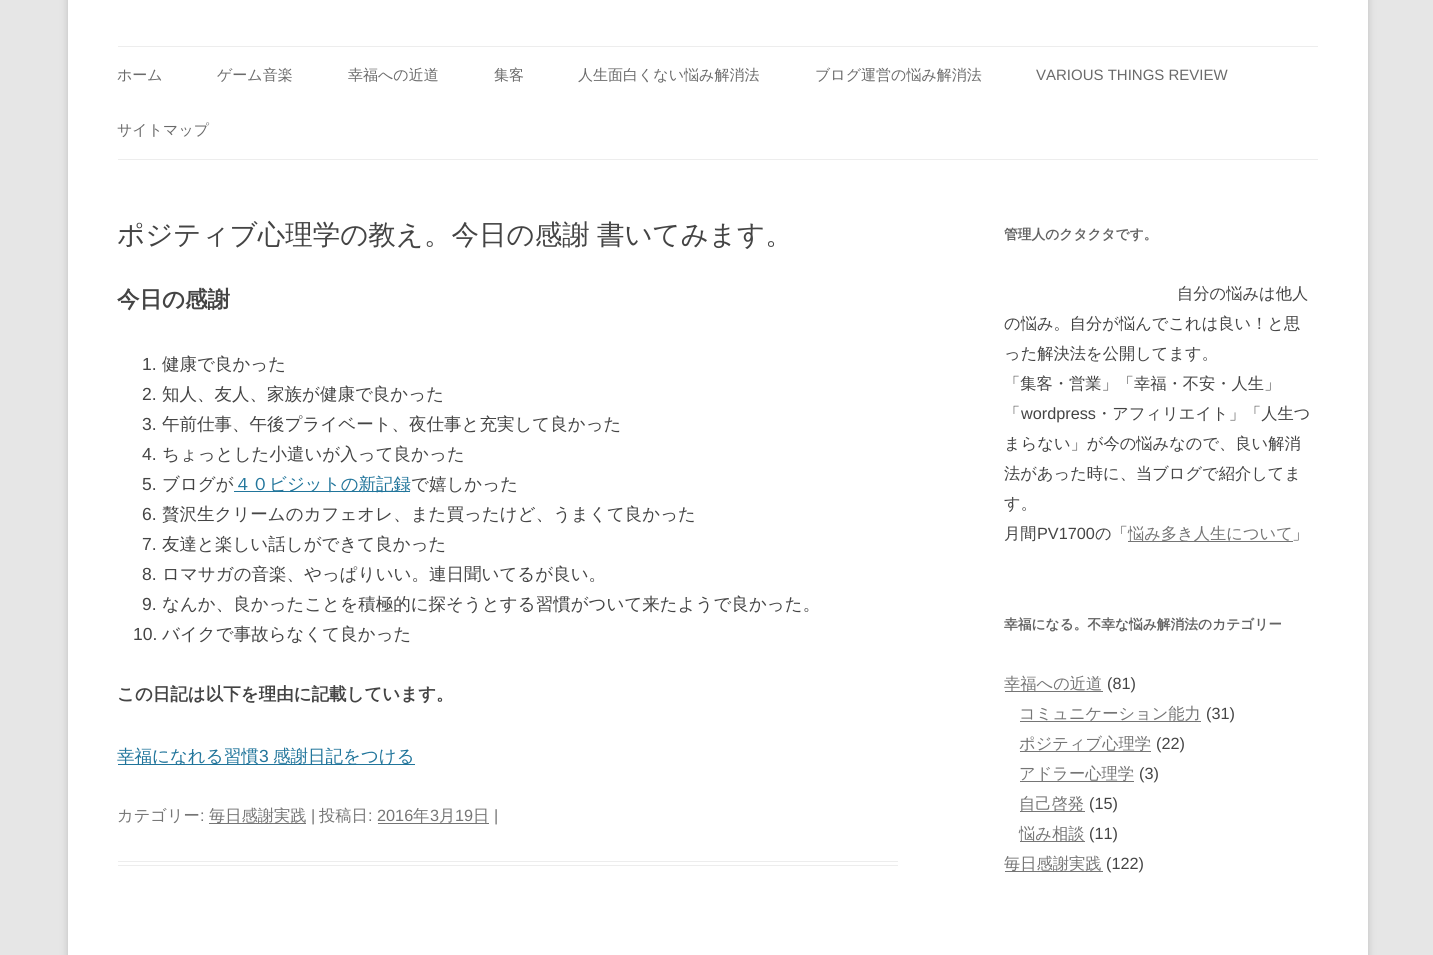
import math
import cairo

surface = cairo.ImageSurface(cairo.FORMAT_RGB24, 1433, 955)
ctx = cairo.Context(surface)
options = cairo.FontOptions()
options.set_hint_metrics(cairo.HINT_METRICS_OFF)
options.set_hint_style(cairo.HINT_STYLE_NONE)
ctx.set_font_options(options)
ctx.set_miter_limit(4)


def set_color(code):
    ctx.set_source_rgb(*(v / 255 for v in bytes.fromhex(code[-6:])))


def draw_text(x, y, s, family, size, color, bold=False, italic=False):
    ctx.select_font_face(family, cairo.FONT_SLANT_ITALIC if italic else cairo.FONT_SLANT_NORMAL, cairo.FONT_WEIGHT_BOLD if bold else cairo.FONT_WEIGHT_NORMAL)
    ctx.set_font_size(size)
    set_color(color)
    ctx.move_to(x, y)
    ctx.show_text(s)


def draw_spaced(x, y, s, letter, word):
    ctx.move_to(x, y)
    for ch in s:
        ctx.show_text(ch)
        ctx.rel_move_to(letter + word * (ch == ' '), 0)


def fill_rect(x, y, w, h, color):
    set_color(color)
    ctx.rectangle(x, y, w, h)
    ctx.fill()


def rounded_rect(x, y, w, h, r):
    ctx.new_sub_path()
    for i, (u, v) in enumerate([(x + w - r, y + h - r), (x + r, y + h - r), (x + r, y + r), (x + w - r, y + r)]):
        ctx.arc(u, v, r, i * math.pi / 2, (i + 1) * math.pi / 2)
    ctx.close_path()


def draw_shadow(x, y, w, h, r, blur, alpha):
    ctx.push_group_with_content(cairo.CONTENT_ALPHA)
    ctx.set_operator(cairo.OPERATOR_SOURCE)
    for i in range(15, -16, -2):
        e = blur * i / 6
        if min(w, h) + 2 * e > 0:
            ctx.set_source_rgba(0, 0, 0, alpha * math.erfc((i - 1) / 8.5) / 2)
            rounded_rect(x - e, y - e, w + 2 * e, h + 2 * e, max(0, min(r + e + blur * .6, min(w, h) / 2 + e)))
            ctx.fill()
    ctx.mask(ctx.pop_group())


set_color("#e6e6e6")
ctx.paint()
set_color("#646464")
draw_shadow(68, -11, 1300, 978, 0, 4, 0.3)
fill_rect(68, 0, 1300, 955, "#ffffff")
fill_rect(118, 46, 1200, 1, "#ededed")
fill_rect(118, 159, 1200, 1, "#ededed")
draw_text(117, 80, "ホーム", "WenQuanYi Zen Hei Medium", 15, "#6a6a6a")
draw_text(217, 80, "ゲーム音楽", "WenQuanYi Zen Hei Medium", 15, "#6a6a6a")
draw_text(348, 80, "幸福への近道", "WenQuanYi Zen Hei Medium", 15, "#6a6a6a")
draw_text(494, 80, "集客", "WenQuanYi Zen Hei Medium", 15, "#6a6a6a")
draw_text(578, 80, "人生面白くない悩み解消法", "WenQuanYi Zen Hei Medium", 15, "#6a6a6a")
draw_text(815, 80, "ブログ運営の悩み解消法", "WenQuanYi Zen Hei Medium", 15, "#6a6a6a")
draw_text(1036, 80, "VARIOUS THINGS REVIEW", "Liberation Sans", 15, "#6a6a6a")
draw_text(117, 135, "サイトマップ", "WenQuanYi Zen Hei Medium", 15, "#6a6a6a")
fill_rect(118, 861, 780, 1, "#ededed")
fill_rect(118, 865, 780, 1, "#ededed")
ctx.set_font_size(27.5)
set_color("#444444")
draw_spaced(117, 244, "ポジティブ心理学の教え。今日の感謝 書いてみます。", 0, -1)
draw_text(117, 307, "今日の感謝", "WenQuanYi Zen Hei", 22.5, "#444444", bold=True)
draw_text(142, 370, "1.", "Liberation Sans", 17.5, "#444444")
draw_text(162, 370, "健康で良かった", "WenQuanYi Zen Hei Medium", 17.5, "#444444")
draw_text(142, 400, "2.", "Liberation Sans", 17.5, "#444444")
draw_text(162, 400, "知人、友人、家族が健康で良かった", "WenQuanYi Zen Hei Medium", 17.5, "#444444")
draw_text(142, 430, "3.", "Liberation Sans", 17.5, "#444444")
draw_text(162, 430, "午前仕事、午後プライベート、夜仕事と充実して良かった", "WenQuanYi Zen Hei Medium", 17.5, "#444444")
draw_text(142, 460, "4.", "Liberation Sans", 17.5, "#444444")
draw_text(162, 460, "ちょっとした小遣いが入って良かった", "WenQuanYi Zen Hei Medium", 17.5, "#444444")
draw_text(142, 490, "5.", "Liberation Sans", 17.5, "#444444")
draw_text(162, 490, "ブログが", "WenQuanYi Zen Hei Medium", 17.5, "#444444")
fill_rect(234, 491, 176, 1, "#21759b")
draw_text(234, 490, "４０ビジットの新記録", "WenQuanYi Zen Hei Medium", 17.5, "#21759b")
draw_text(411, 490, "で嬉しかった", "WenQuanYi Zen Hei Medium", 17.5, "#444444")
draw_text(142, 520, "6.", "Liberation Sans", 17.5, "#444444")
draw_text(162, 520, "贅沢生クリームのカフェオレ、また買ったけど、うまくて良かった", "WenQuanYi Zen Hei Medium", 17.5, "#444444")
draw_text(142, 550, "7.", "Liberation Sans", 17.5, "#444444")
draw_text(162, 550, "友達と楽しい話しができて良かった", "WenQuanYi Zen Hei Medium", 17.5, "#444444")
draw_text(142, 580, "8.", "Liberation Sans", 17.5, "#444444")
draw_text(162, 580, "ロマサガの音楽、やっぱりいい。連日聞いてるが良い。", "WenQuanYi Zen Hei Medium", 17.5, "#444444")
draw_text(142, 610, "9.", "Liberation Sans", 17.5, "#444444")
draw_text(162, 610, "なんか、良かったことを積極的に探そうとする習慣がついて来たようで良かった。", "WenQuanYi Zen Hei Medium", 17.5, "#444444")
draw_text(133, 640, "10.", "Liberation Sans", 17.5, "#444444")
draw_text(162, 640, "バイクで事故らなくて良かった", "WenQuanYi Zen Hei Medium", 17.5, "#444444")
draw_text(117, 700, "この日記は以下を理由に記載しています。", "WenQuanYi Zen Hei", 17.5, "#444444", bold=True)
fill_rect(118, 764, 297, 1, "#21759b")
draw_text(117, 762, "幸福になれる習慣", "WenQuanYi Zen Hei Medium", 17.5, "#21759b")
draw_text(259, 762, "3", "Liberation Sans", 17.5, "#21759b")
draw_text(273, 762, "感謝日記をつける", "WenQuanYi Zen Hei Medium", 17.5, "#21759b")
draw_text(117, 821, "カテゴリー", "WenQuanYi Zen Hei Medium", 16.25, "#757575")
draw_text(200, 821, ":", "Liberation Sans", 16.25, "#757575")
fill_rect(209, 823, 97, 1, "#757575")
draw_text(209, 821, "毎日感謝実践", "WenQuanYi Zen Hei Medium", 16.25, "#757575")
draw_text(311, 821, "|", "Liberation Sans", 16.25, "#757575")
draw_text(319, 821, "投稿日", "WenQuanYi Zen Hei Medium", 16.25, "#757575")
draw_text(368, 821, ": 2016", "Liberation Sans", 16.25, "#757575")
draw_text(413, 821, "年", "WenQuanYi Zen Hei Medium", 16.25, "#757575")
draw_text(430, 821, "3", "Liberation Sans", 16.25, "#757575")
fill_rect(378, 823, 111, 1, "#757575")
draw_text(439, 821, "月", "WenQuanYi Zen Hei Medium", 16.25, "#757575")
draw_text(455, 821, "19", "Liberation Sans", 16.25, "#757575")
draw_text(473, 821, "日", "WenQuanYi Zen Hei Medium", 16.25, "#757575")
draw_text(494, 821, "|", "Liberation Sans", 16.25, "#757575")
draw_text(1004, 239, "管理人のクタクタです。", "WenQuanYi Zen Hei", 13.75, "#636363", bold=True)
draw_text(1177, 299, "自分の悩みは他人", "WenQuanYi Zen Hei Medium", 16.25, "#444444")
draw_text(1004, 329, "の悩み。自分が悩んでこれは良い！と思", "WenQuanYi Zen Hei Medium", 16.25, "#444444")
draw_text(1004, 359, "った解決法を公開してます。", "WenQuanYi Zen Hei Medium", 16.25, "#444444")
draw_text(1004, 389, "「集客・営業」「幸福・不安・人生」", "WenQuanYi Zen Hei Medium", 16.25, "#444444")
draw_text(1004, 419, "「", "WenQuanYi Zen Hei Medium", 16.25, "#444444")
draw_text(1021, 419, "wordpress", "Liberation Sans", 16.25, "#444444")
draw_text(1096, 419, "・アフィリエイト」「人生つ", "WenQuanYi Zen Hei Medium", 16.25, "#444444")
draw_text(1004, 449, "まらない」が今の悩みなので、良い解消", "WenQuanYi Zen Hei Medium", 16.25, "#444444")
draw_text(1004, 479, "法があった時に、当ブログで紹介してま", "WenQuanYi Zen Hei Medium", 16.25, "#444444")
draw_text(1004, 509, "す。", "WenQuanYi Zen Hei Medium", 16.25, "#444444")
draw_text(1004, 539, "月間", "WenQuanYi Zen Hei Medium", 16.25, "#444444")
draw_text(1037, 539, "PV1700", "Liberation Sans", 16.25, "#444444")
draw_text(1095, 539, "の「", "WenQuanYi Zen Hei Medium", 16.25, "#444444")
fill_rect(1128, 541, 165, 1, "#757575")
draw_text(1128, 539, "悩み多き人生について", "WenQuanYi Zen Hei Medium", 16.25, "#757575")
draw_text(1292, 539, "」", "WenQuanYi Zen Hei Medium", 16.25, "#444444")
draw_text(1004, 629, "幸福になる。不幸な悩み解消法のカテゴリー", "WenQuanYi Zen Hei", 13.75, "#636363", bold=True)
fill_rect(1005, 691, 98, 1, "#757575")
draw_text(1004, 689, "幸福への近道", "WenQuanYi Zen Hei Medium", 16.25, "#757575")
draw_text(1107, 689, "(81)", "Liberation Sans", 16.25, "#444444")
draw_text(1019, 719, "コミュニケーション能力", "WenQuanYi Zen Hei Medium", 16.25, "#757575")
fill_rect(1020, 721, 181, 1, "#757575")
draw_text(1206, 719, "(31)", "Liberation Sans", 16.25, "#444444")
fill_rect(1020, 751, 131, 1, "#757575")
draw_text(1019, 749, "ポジティブ心理学", "WenQuanYi Zen Hei Medium", 16.25, "#757575")
draw_text(1156, 749, "(22)", "Liberation Sans", 16.25, "#444444")
fill_rect(1020, 781, 114, 1, "#757575")
draw_text(1019, 779, "アドラー心理学", "WenQuanYi Zen Hei Medium", 16.25, "#757575")
draw_text(1139, 779, "(3)", "Liberation Sans", 16.25, "#444444")
fill_rect(1020, 811, 65, 1, "#757575")
draw_text(1019, 809, "自己啓発", "WenQuanYi Zen Hei Medium", 16.25, "#757575")
draw_text(1089, 809, "(15)", "Liberation Sans", 16.25, "#444444")
fill_rect(1020, 841, 65, 1, "#757575")
draw_text(1019, 839, "悩み相談", "WenQuanYi Zen Hei Medium", 16.25, "#757575")
draw_text(1089, 839, "(11)", "Liberation Sans", 16.25, "#444444")
fill_rect(1005, 871, 98, 1, "#757575")
draw_text(1004, 869, "毎日感謝実践", "WenQuanYi Zen Hei Medium", 16.25, "#757575")
draw_text(1106, 869, "(122)", "Liberation Sans", 16.25, "#444444")
surface.write_to_png("output.png")
